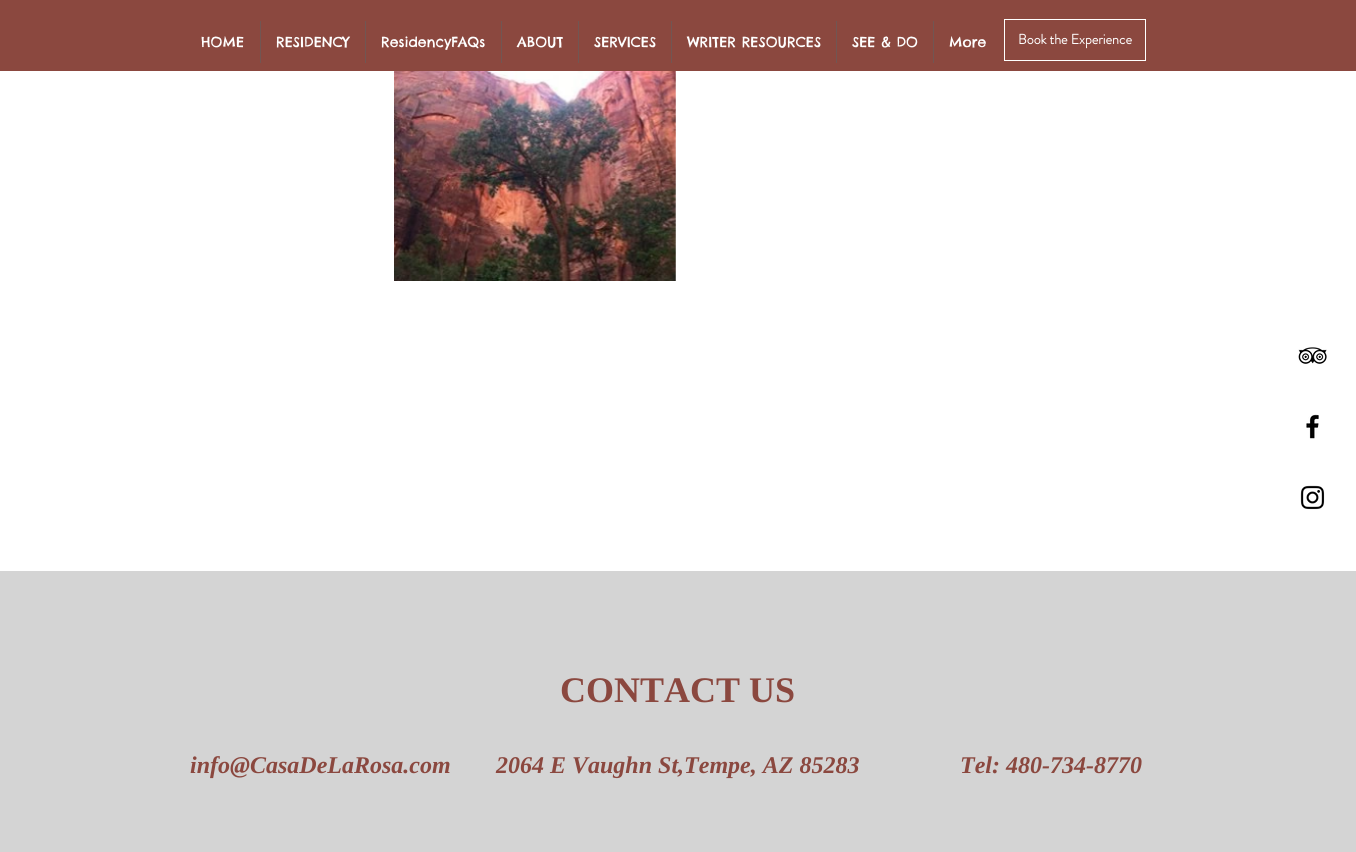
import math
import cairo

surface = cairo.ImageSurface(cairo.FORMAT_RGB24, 1356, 852)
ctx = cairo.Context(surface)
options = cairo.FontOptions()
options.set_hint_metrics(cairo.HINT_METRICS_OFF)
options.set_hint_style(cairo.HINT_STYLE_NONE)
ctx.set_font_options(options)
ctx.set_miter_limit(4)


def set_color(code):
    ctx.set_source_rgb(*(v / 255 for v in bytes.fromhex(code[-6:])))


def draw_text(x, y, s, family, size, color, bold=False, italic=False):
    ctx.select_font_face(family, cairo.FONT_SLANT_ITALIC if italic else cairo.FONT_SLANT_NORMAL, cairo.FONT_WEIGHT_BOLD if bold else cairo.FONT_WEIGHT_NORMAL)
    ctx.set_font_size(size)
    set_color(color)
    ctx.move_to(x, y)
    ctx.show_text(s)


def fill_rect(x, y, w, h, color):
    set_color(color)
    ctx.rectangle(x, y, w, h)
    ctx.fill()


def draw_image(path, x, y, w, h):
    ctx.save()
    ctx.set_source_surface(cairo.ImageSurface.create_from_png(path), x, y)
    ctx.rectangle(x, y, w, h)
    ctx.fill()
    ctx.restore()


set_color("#ffffff")
ctx.paint()
fill_rect(0, 0, 1356, 71, "#8b483f")
draw_text(201, 47, "HOME", "Chelsea Market", 14, "#ffffff")
fill_rect(260, 21, 1, 42, "#715653")
draw_text(276, 47, "RESIDENCY", "Chelsea Market", 14, "#ffffff")
fill_rect(365, 21, 1, 42, "#715653")
draw_text(381, 47, "ResidencyFAQs", "Chelsea Market", 14, "#ffffff")
fill_rect(501, 21, 1, 42, "#715653")
draw_text(517, 47, "ABOUT", "Chelsea Market", 14, "#ffffff")
fill_rect(578, 21, 1, 42, "#715653")
draw_text(594, 47, "SERVICES", "Chelsea Market", 14, "#ffffff")
fill_rect(671, 21, 1, 42, "#715653")
draw_text(687, 47, "WRITER RESOURCES", "Chelsea Market", 14, "#ffffff")
fill_rect(836, 21, 1, 42, "#715653")
draw_text(852, 47, "SEE & DO", "Chelsea Market", 14, "#ffffff")
fill_rect(933, 21, 1, 42, "#715653")
draw_text(949, 47, "More", "Chelsea Market", 14, "#ffffff")
ctx.rectangle(1004.5, 19.5, 141, 41)
ctx.set_line_width(1)
ctx.stroke()
draw_text(1018, 44, "Book the Experience", "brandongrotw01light", 14, "#ffffff", bold=True)
draw_image("assets/img1.png", 394, 71, 282, 210)
draw_image("assets/img2.png", 1298, 347, 29, 17)
draw_image("assets/img3.png", 1306, 414, 13, 25)
draw_image("assets/img4.png", 1300, 485, 25, 25)
fill_rect(0, 571, 1356, 281, "#d4d4d4")
draw_text(560, 702, "CONTACT US", "Liberation Serif", 36, "#8b483f", bold=True)
draw_text(190, 773, "info@CasaDeLaRosa.com", "Liberation Serif", 24, "#8b483f", bold=True, italic=True)
draw_text(496, 773, "2064 E Vaughn St,Tempe, AZ 85283", "Liberation Serif", 24, "#8b483f", bold=True, italic=True)
draw_text(960, 773, "Tel: 480-734-8770", "Liberation Serif", 24, "#8b483f", bold=True, italic=True)
surface.write_to_png("output.png")
